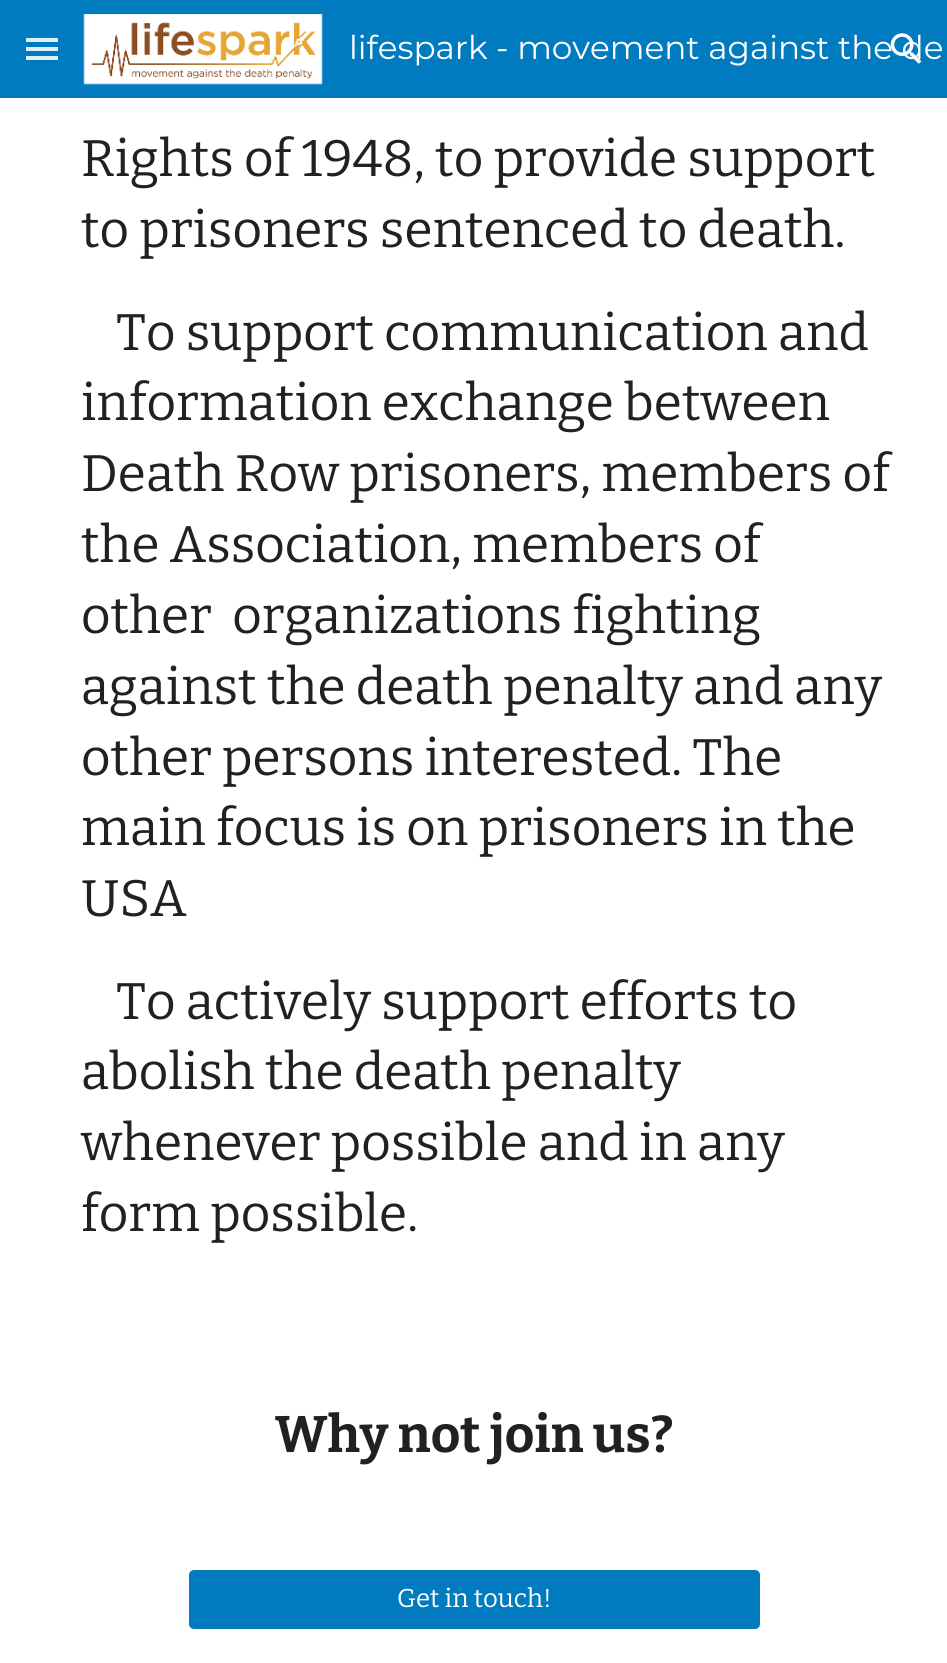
import math
import cairo

surface = cairo.ImageSurface(cairo.FORMAT_RGB24, 947, 1663)
ctx = cairo.Context(surface)
options = cairo.FontOptions()
options.set_hint_metrics(cairo.HINT_METRICS_OFF)
options.set_hint_style(cairo.HINT_STYLE_NONE)
ctx.set_font_options(options)
ctx.set_miter_limit(4)


def set_color(code):
    ctx.set_source_rgb(*(v / 255 for v in bytes.fromhex(code[-6:])))


def draw_text(x, y, s, family, size, color, bold=False, italic=False):
    ctx.select_font_face(family, cairo.FONT_SLANT_ITALIC if italic else cairo.FONT_SLANT_NORMAL, cairo.FONT_WEIGHT_BOLD if bold else cairo.FONT_WEIGHT_NORMAL)
    ctx.set_font_size(size)
    set_color(color)
    ctx.move_to(x, y)
    ctx.show_text(s)


def fill_rect(x, y, w, h, color):
    set_color(color)
    ctx.rectangle(x, y, w, h)
    ctx.fill()


def rounded_rect(x, y, w, h, r):
    ctx.new_sub_path()
    for i, (u, v) in enumerate([(x + w - r, y + h - r), (x + r, y + h - r), (x + r, y + r), (x + w - r, y + r)]):
        ctx.arc(u, v, r, i * math.pi / 2, (i + 1) * math.pi / 2)
    ctx.close_path()


def draw_image(path, x, y, w, h):
    ctx.save()
    ctx.set_source_surface(cairo.ImageSurface.create_from_png(path), x, y)
    ctx.rectangle(x, y, w, h)
    ctx.fill()
    ctx.restore()


set_color("#ffffff")
ctx.paint()
fill_rect(0, 0, 947, 98, "#007bbf")
fill_rect(26, 38, 32, 4, "#dfeff7")
fill_rect(26, 47, 32, 4, "#dfeff7")
fill_rect(26, 56, 32, 4, "#dfeff7")
draw_text(349, 59, "lifespark - movement against the de", "Montserrat", 32.7, "#ffffff")
draw_image("assets/img1.png", 890, 33, 32, 31)
draw_image("assets/img2.png", 83, 14, 240, 71)
draw_text(81, 176, "Rights of 1948, to provide support", "Bitter", 51.3, "#212121")
draw_text(81, 247, "to prisoners sentenced to death.", "Bitter", 51.3, "#212121")
draw_text(116, 350, "To support communication and", "Bitter", 51.3, "#212121")
draw_text(81, 420, "information exchange between", "Bitter", 51.3, "#212121")
draw_text(81, 491, "Death Row prisoners, members of", "Bitter", 51.3, "#212121")
draw_text(81, 562, "the Association, members of", "Bitter", 51.3, "#212121")
draw_text(81, 633, "other  organizations fighting", "Bitter", 51.3, "#212121")
draw_text(81, 704, "against the death penalty and any", "Bitter", 51.3, "#212121")
draw_text(81, 775, "other persons interested. The", "Bitter", 51.3, "#212121")
draw_text(81, 845, "main focus is on prisoners in the", "Bitter", 51.3, "#212121")
draw_text(81, 916, "USA", "Bitter", 51.3, "#212121")
draw_text(116, 1019, "To actively support efforts to", "Bitter", 51.3, "#212121")
draw_text(81, 1089, "abolish the death penalty", "Bitter", 51.3, "#212121")
draw_text(81, 1160, "whenever possible and in any", "Bitter", 51.3, "#212121")
draw_text(81, 1231, "form possible.", "Bitter", 51.3, "#212121")
draw_text(275, 1452, "Why not join us?", "Bitter", 51.3, "#212121", bold=True)
set_color("#007bbf")
rounded_rect(189, 1570, 571, 59, 5)
ctx.fill()
draw_text(397, 1607, "Get in touch!", "Bitter", 25.75, "#ffffff")
surface.write_to_png("output.png")
